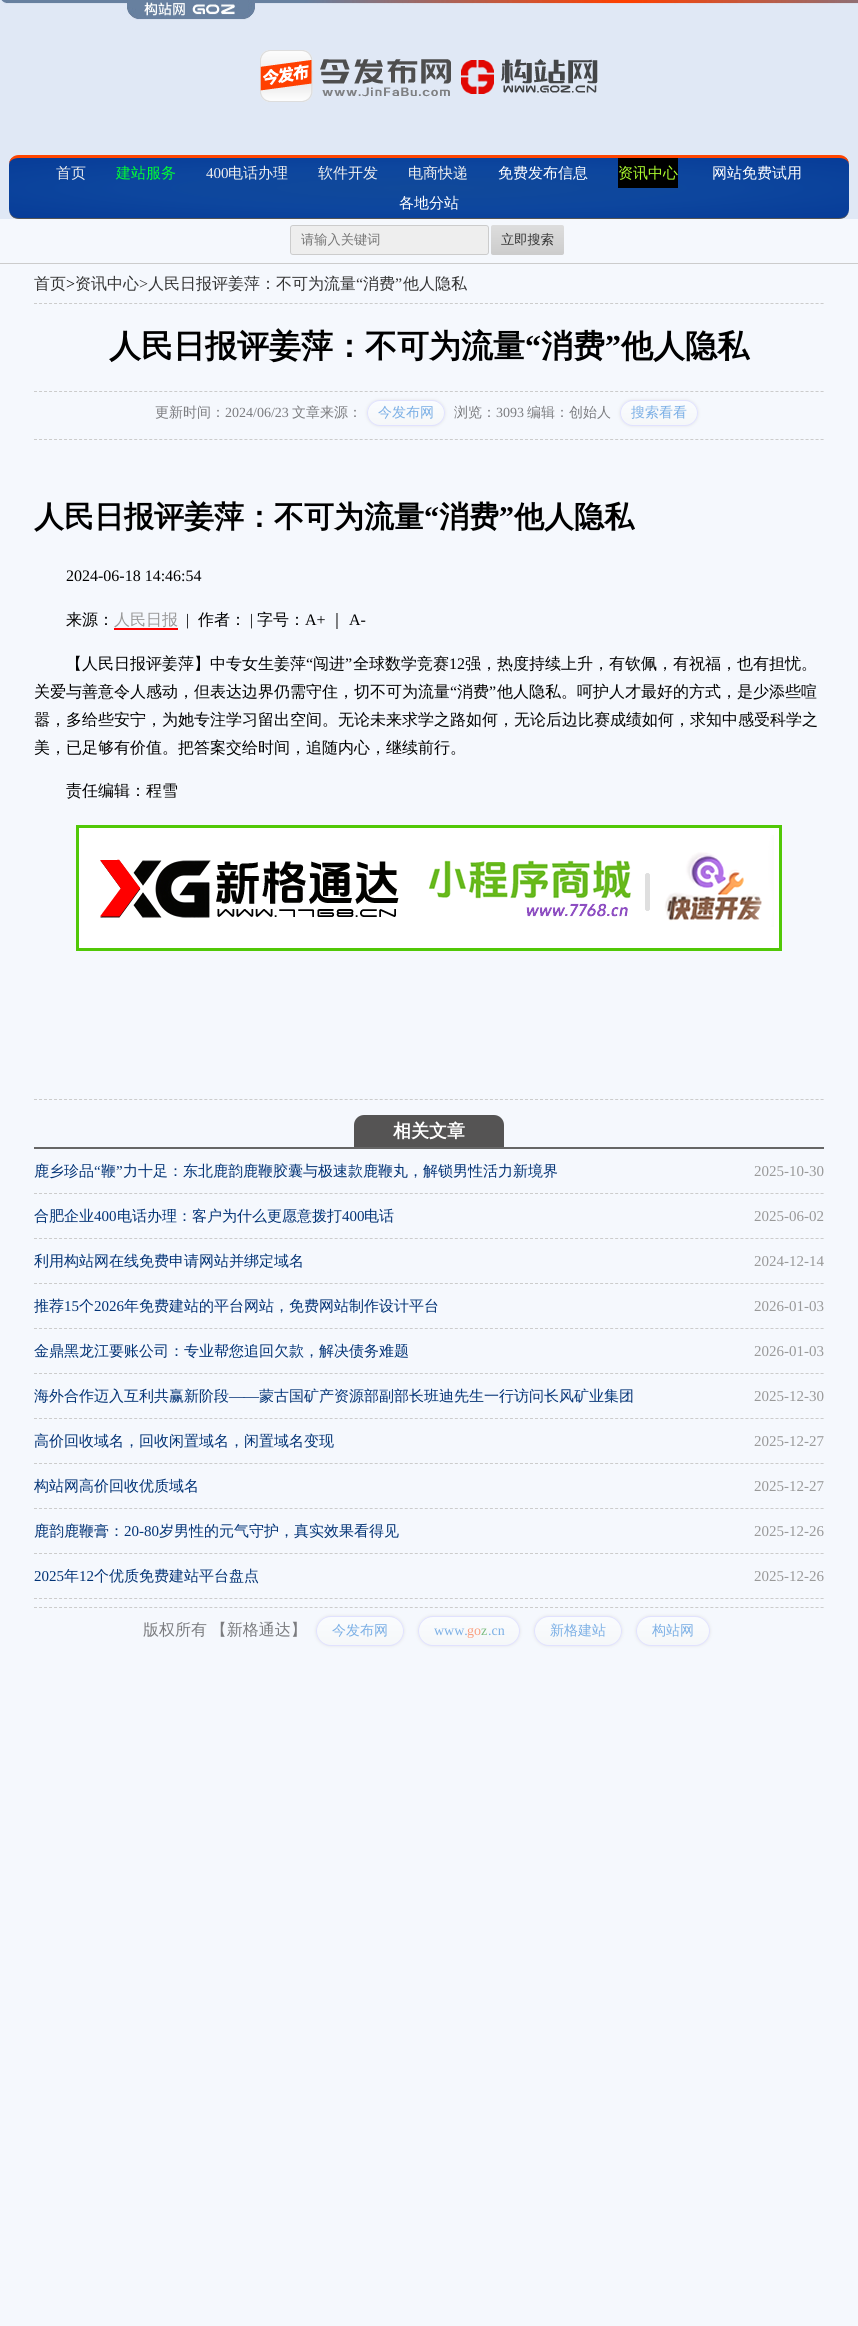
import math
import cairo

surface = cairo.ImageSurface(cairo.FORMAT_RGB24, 858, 2326)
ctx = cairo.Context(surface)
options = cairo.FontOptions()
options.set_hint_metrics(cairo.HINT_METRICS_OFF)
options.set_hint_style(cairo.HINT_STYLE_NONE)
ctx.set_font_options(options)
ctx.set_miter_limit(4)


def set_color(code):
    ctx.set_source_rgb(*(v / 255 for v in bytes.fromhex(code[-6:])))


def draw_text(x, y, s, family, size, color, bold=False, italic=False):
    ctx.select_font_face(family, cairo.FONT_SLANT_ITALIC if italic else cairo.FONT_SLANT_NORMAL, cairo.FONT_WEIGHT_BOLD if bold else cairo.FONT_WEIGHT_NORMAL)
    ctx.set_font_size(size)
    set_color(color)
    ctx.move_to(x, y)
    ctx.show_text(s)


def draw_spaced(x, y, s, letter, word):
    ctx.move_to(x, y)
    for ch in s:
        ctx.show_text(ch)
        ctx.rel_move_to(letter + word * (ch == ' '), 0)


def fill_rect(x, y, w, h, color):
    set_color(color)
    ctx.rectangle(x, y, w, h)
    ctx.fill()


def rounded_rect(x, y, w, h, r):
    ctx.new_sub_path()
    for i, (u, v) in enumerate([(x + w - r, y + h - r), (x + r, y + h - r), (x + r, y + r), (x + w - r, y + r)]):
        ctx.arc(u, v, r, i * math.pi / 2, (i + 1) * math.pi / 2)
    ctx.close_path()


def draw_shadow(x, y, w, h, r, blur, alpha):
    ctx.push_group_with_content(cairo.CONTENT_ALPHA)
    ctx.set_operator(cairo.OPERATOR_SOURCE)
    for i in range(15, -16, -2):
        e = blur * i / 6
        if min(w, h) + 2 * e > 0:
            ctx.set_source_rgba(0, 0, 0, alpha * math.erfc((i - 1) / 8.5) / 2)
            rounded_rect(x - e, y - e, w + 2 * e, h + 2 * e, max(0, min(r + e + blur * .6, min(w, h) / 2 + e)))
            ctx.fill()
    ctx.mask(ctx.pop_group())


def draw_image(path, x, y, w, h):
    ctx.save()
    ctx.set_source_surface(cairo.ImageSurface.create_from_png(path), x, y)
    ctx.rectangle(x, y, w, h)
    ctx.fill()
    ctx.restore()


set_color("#f5f8fd")
ctx.paint()
fill_rect(0, 0, 858, 219, "#e0e8f5")
draw_image("assets/img1.png", 1, 0, 857, 20)
draw_image("assets/img2.png", 260, 50, 338, 52)
ctx.save()
rounded_rect(9, 155, 840, 64, 10)
ctx.clip()
gradient = cairo.RadialGradient(0, 0, 0, 0, 0, 1)
gradient.set_matrix(cairo.Matrix(1 / 594, 0, 0, 1 / 42, -1 * 429 / 594, -1 * 188 / 42))
gradient.add_color_stop_rgba(0, 0.063, 0.286, 0.604, 1)
gradient.add_color_stop_rgba(0.5, 0.051, 0.275, 0.62, 1)
gradient.add_color_stop_rgba(1, 0.027, 0.235, 0.596, 1)
ctx.set_source(gradient)
ctx.rectangle(9, 158, 840, 60)
ctx.fill()
ctx.restore()
set_color("#ff4500")
ctx.new_path()
ctx.move_to(19, 155)
ctx.curve_to(13, 155, 9, 159, 9, 165)
ctx.curve_to(9, 161, 13, 158, 19, 158)
ctx.line_to(839, 158)
ctx.curve_to(845, 158, 849, 161, 849, 165)
ctx.curve_to(849, 159, 845, 155, 839, 155)
ctx.close_path()
ctx.fill()
set_color("#555555")
ctx.new_path()
ctx.move_to(839, 219)
ctx.curve_to(845, 219, 849, 215, 849, 209)
ctx.curve_to(849, 214, 845, 218, 839, 218)
ctx.line_to(19, 218)
ctx.curve_to(13, 218, 9, 214, 9, 209)
ctx.curve_to(9, 215, 13, 219, 19, 219)
ctx.close_path()
ctx.fill()
draw_text(56, 178, "首页", "WenQuanYi Zen Hei Medium", 15, "#eeeeee")
draw_text(116, 178, "建站服务", "WenQuanYi Zen Hei Medium", 15, "#00ff33")
draw_text(206, 178, "400", "Liberation Serif", 15, "#eeeeee")
draw_text(228, 178, "电话办理", "WenQuanYi Zen Hei Medium", 15, "#eeeeee")
draw_text(318, 178, "软件开发", "WenQuanYi Zen Hei Medium", 15, "#eeeeee")
draw_text(408, 178, "电商快递", "WenQuanYi Zen Hei Medium", 15, "#eeeeee")
draw_text(498, 178, "免费发布信息", "WenQuanYi Zen Hei Medium", 15, "#ffffff")
fill_rect(618, 158, 60, 30, "#000000")
draw_text(618, 178, "资讯中心", "WenQuanYi Zen Hei Medium", 15, "#adff2f")
draw_text(712, 178, "网站免费试用", "WenQuanYi Zen Hei Medium", 15, "#ffffff")
draw_text(399, 208, "各地分站", "WenQuanYi Zen Hei Medium", 15, "#ffffff")
fill_rect(0, 263, 858, 1, "#cccccc")
set_color("#eeeeee")
rounded_rect(291, 226, 197, 28, 2)
ctx.fill()
rounded_rect(290.5, 225.5, 198, 29, 2.5)
set_color("#cccccc")
ctx.set_line_width(1)
ctx.stroke()
draw_text(301, 244, "请输入关键词", "WenQuanYi Zen Hei Medium", 13.25, "#757575")
gradient = cairo.LinearGradient(528, 225, 528, 255)
gradient.add_color_stop_rgba(0, 0.867, 0.867, 0.867, 1)
gradient.add_color_stop_rgba(1, 0.8, 0.8, 0.8, 1)
ctx.set_source(gradient)
rounded_rect(491, 225, 73, 30, 2)
ctx.fill()
draw_text(501, 244, "立即搜索", "WenQuanYi Zen Hei Medium", 13.25, "#333333")
draw_text(34, 289, "首页", "WenQuanYi Zen Hei Medium", 16, "#333333")
draw_text(66, 289, ">", "Liberation Serif", 16, "#000000")
draw_text(75, 289, "资讯中心", "WenQuanYi Zen Hei Medium", 16, "#333333")
draw_text(139, 289, ">", "Liberation Serif", 16, "#333333")
draw_text(148, 289, "人民日报评姜萍：不可为流量", "WenQuanYi Zen Hei Medium", 16, "#333333")
draw_text(356, 289, "“", "Liberation Serif", 16, "#333333")
draw_text(363, 289, "消费", "WenQuanYi Zen Hei Medium", 16, "#333333")
draw_text(395, 289, "”", "Liberation Serif", 16, "#333333")
draw_text(403, 289, "他人隐私", "WenQuanYi Zen Hei Medium", 16, "#333333")
ctx.new_path()
ctx.move_to(34, 303.5)
ctx.line_to(824, 303.5)
set_color("#cccccc")
ctx.set_dash([3, 2.01])
ctx.stroke()
draw_text(109, 357, "人民日报评姜萍：不可为流量", "WenQuanYi Zen Hei", 32, "#000000", bold=True)
draw_text(525, 357, "“", "Liberation Serif", 32, "#000000", bold=True)
draw_text(541, 357, "消费", "WenQuanYi Zen Hei", 32, "#000000", bold=True)
draw_text(605, 357, "”", "Liberation Serif", 32, "#000000", bold=True)
draw_text(621, 357, "他人隐私", "WenQuanYi Zen Hei", 32, "#000000", bold=True)
ctx.new_path()
ctx.move_to(34, 391.5)
ctx.line_to(824, 391.5)
set_color("#cccccc")
ctx.stroke()
draw_text(155, 417, "更新时间：", "WenQuanYi Zen Hei Medium", 14, "#7b7c7f")
draw_text(225, 417, "2024/06/23", "Liberation Serif", 14, "#7b7c7f")
draw_text(292, 417, "文章来源：", "WenQuanYi Zen Hei Medium", 14, "#7b7c7f")
set_color("#e1e2e5")
draw_shadow(367, 400, 78, 26, 13, 1.5, 1)
ctx.save()
rounded_rect(367, 400, 78, 26, 13)
ctx.clip()
gradient = cairo.LinearGradient(406, 401, 406, 425)
gradient.add_color_stop_rgba(0, 0.98, 0.988, 0.996, 1)
gradient.add_color_stop_rgba(1, 0.961, 0.969, 0.976, 1)
ctx.set_source(gradient)
ctx.rectangle(367, 401, 78, 24)
ctx.fill()
ctx.restore()
rounded_rect(367.5, 400.5, 77, 25, 12.5)
set_color("#e1e2fe")
ctx.set_dash([])
ctx.stroke()
draw_text(378, 417, "今发布网", "WenQuanYi Zen Hei Medium", 14, "#7bafe5")
draw_text(454, 417, "浏览：", "WenQuanYi Zen Hei Medium", 14, "#7b7c7f")
draw_text(496, 417, "3093", "Liberation Serif", 14, "#7b7c7f")
draw_text(527, 417, "编辑：创始人", "WenQuanYi Zen Hei Medium", 14, "#7b7c7f")
set_color("#e1e2e5")
draw_shadow(620, 400, 78, 26, 13, 1.5, 1)
ctx.save()
rounded_rect(620, 400, 78, 26, 13)
ctx.clip()
gradient = cairo.LinearGradient(659, 401, 659, 425)
gradient.add_color_stop_rgba(0, 0.98, 0.988, 0.996, 1)
gradient.add_color_stop_rgba(1, 0.961, 0.969, 0.976, 1)
ctx.set_source(gradient)
ctx.rectangle(620, 401, 78, 24)
ctx.fill()
ctx.restore()
rounded_rect(620.5, 400.5, 77, 25, 12.5)
set_color("#e1e2fe")
ctx.stroke()
draw_text(631, 417, "搜索看看", "WenQuanYi Zen Hei Medium", 14, "#7bafe5")
ctx.new_path()
ctx.move_to(34, 439.5)
ctx.line_to(824, 439.5)
set_color("#cccccc")
ctx.set_dash([3, 2.01])
ctx.stroke()
draw_text(34, 527, "人民日报评姜萍：不可为流量", "WenQuanYi Zen Hei", 30, "#000000", bold=True)
draw_text(424, 527, "“", "Liberation Serif", 30, "#000000", bold=True)
draw_text(439, 527, "消费", "WenQuanYi Zen Hei", 30, "#000000", bold=True)
draw_text(499, 527, "”", "Liberation Serif", 30, "#000000", bold=True)
draw_text(514, 527, "他人隐私", "WenQuanYi Zen Hei", 30, "#000000", bold=True)
draw_text(66, 581, "2024-06-18 14:46:54", "Liberation Serif", 16, "#000000")
draw_text(66, 625, "来源：", "WenQuanYi Zen Hei Medium", 16, "#000000")
draw_text(114, 625, "人民日报", "WenQuanYi Zen Hei Medium", 16, "#999999")
fill_rect(114, 628, 64, 2, "#ff0000")
draw_text(186, 625, "|", "Liberation Serif", 16, "#000000")
draw_text(198, 625, "作者：", "WenQuanYi Zen Hei Medium", 16, "#000000")
draw_text(250, 625, "|", "Liberation Serif", 16, "#000000")
draw_text(257, 625, "字号：", "WenQuanYi Zen Hei Medium", 16, "#000000")
draw_text(305, 625, "A+", "Liberation Serif", 16, "#000000")
draw_text(329, 625, "｜", "WenQuanYi Zen Hei Medium", 16, "#000000")
draw_text(349, 625, "A-", "Liberation Serif", 16, "#000000")
draw_text(66, 669, "【人民日报评姜萍】中专女生姜萍", "WenQuanYi Zen Hei Medium", 16, "#000000")
draw_text(306, 669, "“", "Liberation Serif", 16, "#000000")
draw_text(313, 669, "闯进", "WenQuanYi Zen Hei Medium", 16, "#000000")
draw_text(345, 669, "”", "Liberation Serif", 16, "#000000")
draw_text(353, 669, "全球数学竞赛", "WenQuanYi Zen Hei Medium", 16, "#000000")
draw_text(449, 669, "12", "Liberation Serif", 16, "#000000")
draw_text(465, 669, "强，热度持续上升，有钦佩，有祝福，也有担忧。", "WenQuanYi Zen Hei Medium", 16, "#000000")
draw_text(34, 697, "关爱与善意令人感动，但表达边界仍需守住，切不可为流量", "WenQuanYi Zen Hei Medium", 16, "#000000")
draw_text(450, 697, "“", "Liberation Serif", 16, "#000000")
draw_text(457, 697, "消费", "WenQuanYi Zen Hei Medium", 16, "#000000")
draw_text(489, 697, "”", "Liberation Serif", 16, "#000000")
draw_text(497, 697, "他人隐私。呵护人才最好的方式，是少添些喧", "WenQuanYi Zen Hei Medium", 16, "#000000")
draw_text(34, 725, "嚣，多给些安宁，为她专注学习留出空间。无论未来求学之路如何，无论后边比赛成绩如何，求知中感受科学之", "WenQuanYi Zen Hei Medium", 16, "#000000")
draw_text(34, 753, "美，已足够有价值。把答案交给时间，追随内心，继续前行。", "WenQuanYi Zen Hei Medium", 16, "#000000")
draw_text(66, 796, "责任编辑：程雪", "WenQuanYi Zen Hei Medium", 16, "#000000")
ctx.rectangle(77.5, 826.5, 703, 123)
set_color("#51c807")
ctx.set_line_width(3)
ctx.set_dash([])
ctx.stroke()
draw_image("assets/img3.png", 79, 828, 700, 120)
ctx.new_path()
ctx.move_to(34, 1099.5)
ctx.line_to(824, 1099.5)
set_color("#cccccc")
ctx.set_line_width(1)
ctx.set_dash([3, 2.01])
ctx.stroke()
set_color("#555454")
ctx.new_path()
ctx.move_to(364, 1115)
ctx.line_to(494, 1115)
ctx.curve_to(499.5, 1115, 504, 1119.5, 504, 1125)
ctx.line_to(504, 1147)
ctx.line_to(354, 1147)
ctx.line_to(354, 1125)
ctx.curve_to(354, 1119.5, 358.5, 1115, 364, 1115)
ctx.close_path()
ctx.fill()
draw_text(393, 1137, "相关文章", "WenQuanYi Zen Hei", 18, "#ffffff", bold=True)
fill_rect(34, 1147, 790, 2, "#666666")
draw_text(34, 1176, "鹿乡珍品", "WenQuanYi Zen Hei Medium", 15, "#023376")
draw_text(94, 1176, "“", "Liberation Serif", 15, "#023376")
draw_text(101, 1176, "鞭", "WenQuanYi Zen Hei Medium", 15, "#023376")
draw_text(116, 1176, "”", "Liberation Serif", 15, "#023376")
draw_text(123, 1176, "力十足：东北鹿韵鹿鞭胶囊与极速款鹿鞭丸，解锁男性活力新境界", "WenQuanYi Zen Hei Medium", 15, "#023376")
draw_text(754, 1176, "2025-10-30", "Liberation Serif", 15, "#999999")
ctx.new_path()
ctx.move_to(34, 1193.5)
ctx.line_to(824, 1193.5)
set_color("#cccccc")
ctx.stroke()
draw_text(34, 1221, "合肥企业", "WenQuanYi Zen Hei Medium", 15, "#023376")
draw_text(94, 1221, "400", "Liberation Serif", 15, "#023376")
draw_text(117, 1221, "电话办理：客户为什么更愿意拨打", "WenQuanYi Zen Hei Medium", 15, "#023376")
draw_text(342, 1221, "400", "Liberation Serif", 15, "#023376")
draw_text(364, 1221, "电话", "WenQuanYi Zen Hei Medium", 15, "#023376")
draw_text(754, 1221, "2025-06-02", "Liberation Serif", 15, "#999999")
ctx.new_path()
ctx.move_to(34, 1238.5)
ctx.line_to(824, 1238.5)
set_color("#cccccc")
ctx.stroke()
draw_text(34, 1266, "利用构站网在线免费申请网站并绑定域名", "WenQuanYi Zen Hei Medium", 15, "#023376")
draw_text(754, 1266, "2024-12-14", "Liberation Serif", 15, "#999999")
ctx.new_path()
ctx.move_to(34, 1283.5)
ctx.line_to(824, 1283.5)
set_color("#cccccc")
ctx.stroke()
draw_text(34, 1311, "推荐", "WenQuanYi Zen Hei Medium", 15, "#023376")
draw_text(64, 1311, "15", "Liberation Serif", 15, "#023376")
draw_text(79, 1311, "个", "WenQuanYi Zen Hei Medium", 15, "#023376")
draw_text(94, 1311, "2026", "Liberation Serif", 15, "#023376")
draw_text(124, 1311, "年免费建站的平台网站，免费网站制作设计平台", "WenQuanYi Zen Hei Medium", 15, "#023376")
draw_text(754, 1311, "2026-01-03", "Liberation Serif", 15, "#999999")
ctx.new_path()
ctx.move_to(34, 1328.5)
ctx.line_to(824, 1328.5)
set_color("#cccccc")
ctx.stroke()
draw_text(34, 1356, "金鼎黑龙江要账公司：专业帮您追回欠款，解决债务难题", "WenQuanYi Zen Hei Medium", 15, "#023376")
draw_text(754, 1356, "2026-01-03", "Liberation Serif", 15, "#999999")
ctx.new_path()
ctx.move_to(34, 1373.5)
ctx.line_to(824, 1373.5)
set_color("#cccccc")
ctx.stroke()
draw_text(34, 1401, "海外合作迈入互利共赢新阶段", "WenQuanYi Zen Hei Medium", 15, "#023376")
draw_text(229, 1401, "——", "Liberation Serif", 15, "#023376")
draw_text(259, 1401, "蒙古国矿产资源部副部长班迪先生一行访问长风矿业集团", "WenQuanYi Zen Hei Medium", 15, "#023376")
draw_text(754, 1401, "2025-12-30", "Liberation Serif", 15, "#999999")
ctx.new_path()
ctx.move_to(34, 1418.5)
ctx.line_to(824, 1418.5)
set_color("#cccccc")
ctx.stroke()
draw_text(34, 1446, "高价回收域名，回收闲置域名，闲置域名变现", "WenQuanYi Zen Hei Medium", 15, "#023376")
draw_text(754, 1446, "2025-12-27", "Liberation Serif", 15, "#999999")
ctx.new_path()
ctx.move_to(34, 1463.5)
ctx.line_to(824, 1463.5)
set_color("#cccccc")
ctx.stroke()
draw_text(34, 1491, "构站网高价回收优质域名", "WenQuanYi Zen Hei Medium", 15, "#023376")
draw_text(754, 1491, "2025-12-27", "Liberation Serif", 15, "#999999")
ctx.new_path()
ctx.move_to(34, 1508.5)
ctx.line_to(824, 1508.5)
set_color("#cccccc")
ctx.stroke()
draw_text(34, 1536, "鹿韵鹿鞭膏：", "WenQuanYi Zen Hei Medium", 15, "#023376")
draw_text(124, 1536, "20-80", "Liberation Serif", 15, "#023376")
draw_text(159, 1536, "岁男性的元气守护，真实效果看得见", "WenQuanYi Zen Hei Medium", 15, "#023376")
draw_text(754, 1536, "2025-12-26", "Liberation Serif", 15, "#999999")
ctx.new_path()
ctx.move_to(34, 1553.5)
ctx.line_to(824, 1553.5)
set_color("#cccccc")
ctx.stroke()
draw_text(34, 1581, "2025", "Liberation Serif", 15, "#023376")
draw_text(64, 1581, "年", "WenQuanYi Zen Hei Medium", 15, "#023376")
draw_text(79, 1581, "12", "Liberation Serif", 15, "#023376")
draw_text(94, 1581, "个优质免费建站平台盘点", "WenQuanYi Zen Hei Medium", 15, "#023376")
draw_text(754, 1581, "2025-12-26", "Liberation Serif", 15, "#999999")
ctx.new_path()
ctx.move_to(34, 1598.5)
ctx.line_to(824, 1598.5)
set_color("#cccccc")
ctx.stroke()
ctx.new_path()
ctx.move_to(34, 1607.5)
ctx.line_to(824, 1607.5)
ctx.stroke()
ctx.select_font_face("WenQuanYi Zen Hei Medium")
ctx.set_font_size(16)
set_color("#7b7c7f")
draw_spaced(143, 1635, "版权所有 【新格通达】", 0, -1)
set_color("#e1e2e5")
draw_shadow(316, 1616, 88, 30, 15, 1.5, 1)
ctx.save()
rounded_rect(316, 1616, 88, 30, 15)
ctx.clip()
gradient = cairo.LinearGradient(360, 1617, 360, 1645)
gradient.add_color_stop_rgba(0, 0.98, 0.988, 0.996, 1)
gradient.add_color_stop_rgba(1, 0.961, 0.969, 0.976, 1)
ctx.set_source(gradient)
ctx.rectangle(316, 1617, 88, 28)
ctx.fill()
ctx.restore()
rounded_rect(316.5, 1616.5, 87, 29, 14.5)
set_color("#e1e2fe")
ctx.set_dash([])
ctx.stroke()
draw_text(332, 1635, "今发布网", "WenQuanYi Zen Hei Medium", 14, "#7bafe5")
set_color("#e1e2e5")
draw_shadow(418, 1616, 102, 30, 15, 1.5, 1)
ctx.save()
rounded_rect(418, 1616, 102, 30, 15)
ctx.clip()
gradient = cairo.LinearGradient(469, 1617, 469, 1645)
gradient.add_color_stop_rgba(0, 0.98, 0.988, 0.996, 1)
gradient.add_color_stop_rgba(1, 0.961, 0.969, 0.976, 1)
ctx.set_source(gradient)
ctx.rectangle(418, 1617, 102, 28)
ctx.fill()
ctx.restore()
rounded_rect(418.5, 1616.5, 101, 29, 14.5)
set_color("#e1e2fe")
ctx.stroke()
draw_text(434, 1635, "www.", "Liberation Serif", 14, "#7bafe5")
draw_text(467, 1635, "go", "Liberation Serif", 14, "#fa9f7f")
draw_text(481, 1635, "z", "Liberation Serif", 14, "#7bbc7f")
draw_text(488, 1635, ".cn", "Liberation Serif", 14, "#7bafe5")
set_color("#e1e2e5")
draw_shadow(534, 1616, 88, 30, 15, 1.5, 1)
ctx.save()
rounded_rect(534, 1616, 88, 30, 15)
ctx.clip()
gradient = cairo.LinearGradient(578, 1617, 578, 1645)
gradient.add_color_stop_rgba(0, 0.98, 0.988, 0.996, 1)
gradient.add_color_stop_rgba(1, 0.961, 0.969, 0.976, 1)
ctx.set_source(gradient)
ctx.rectangle(534, 1617, 88, 28)
ctx.fill()
ctx.restore()
rounded_rect(534.5, 1616.5, 87, 29, 14.5)
set_color("#e1e2fe")
ctx.stroke()
draw_text(550, 1635, "新格建站", "WenQuanYi Zen Hei Medium", 14, "#7bafe5")
set_color("#e1e2e5")
draw_shadow(636, 1616, 74, 30, 15, 1.5, 1)
ctx.save()
rounded_rect(636, 1616, 74, 30, 15)
ctx.clip()
gradient = cairo.LinearGradient(673, 1617, 673, 1645)
gradient.add_color_stop_rgba(0, 0.98, 0.988, 0.996, 1)
gradient.add_color_stop_rgba(1, 0.961, 0.969, 0.976, 1)
ctx.set_source(gradient)
ctx.rectangle(636, 1617, 74, 28)
ctx.fill()
ctx.restore()
rounded_rect(636.5, 1616.5, 73, 29, 14.5)
set_color("#e1e2fe")
ctx.stroke()
draw_text(652, 1635, "构站网", "WenQuanYi Zen Hei Medium", 14, "#7bafe5")
surface.write_to_png("output.png")
